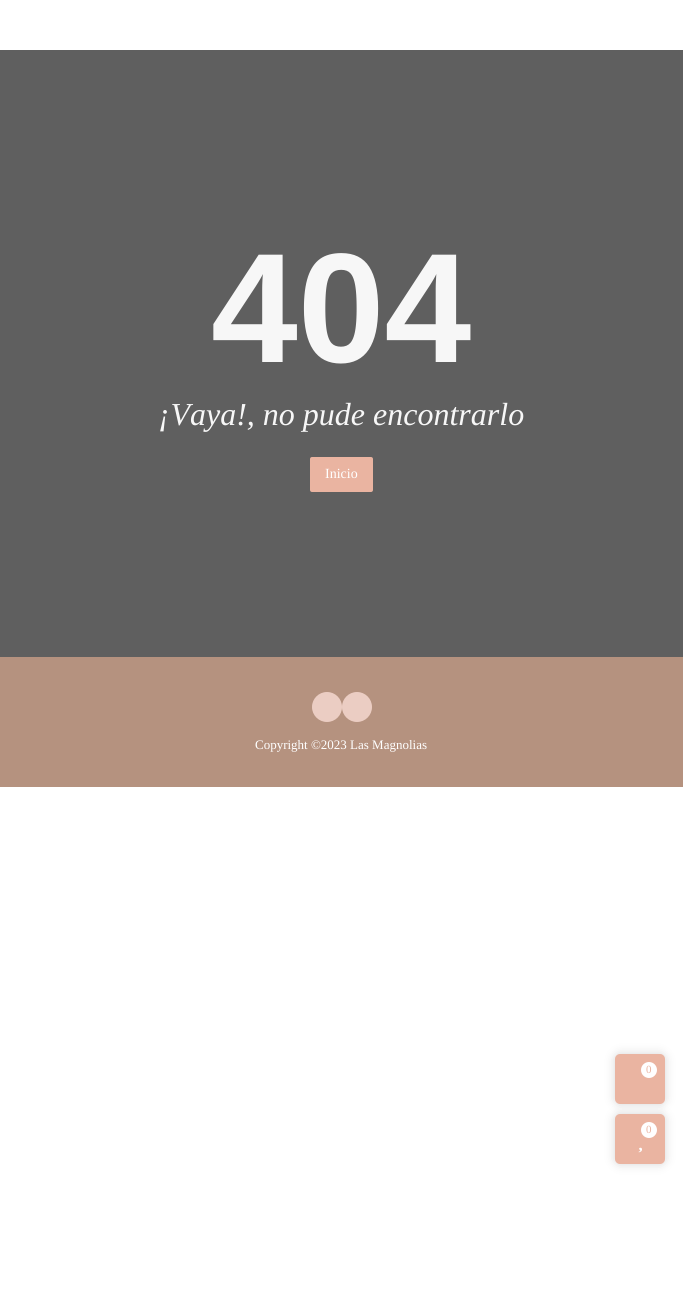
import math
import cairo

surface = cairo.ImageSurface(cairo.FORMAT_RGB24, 683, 1304)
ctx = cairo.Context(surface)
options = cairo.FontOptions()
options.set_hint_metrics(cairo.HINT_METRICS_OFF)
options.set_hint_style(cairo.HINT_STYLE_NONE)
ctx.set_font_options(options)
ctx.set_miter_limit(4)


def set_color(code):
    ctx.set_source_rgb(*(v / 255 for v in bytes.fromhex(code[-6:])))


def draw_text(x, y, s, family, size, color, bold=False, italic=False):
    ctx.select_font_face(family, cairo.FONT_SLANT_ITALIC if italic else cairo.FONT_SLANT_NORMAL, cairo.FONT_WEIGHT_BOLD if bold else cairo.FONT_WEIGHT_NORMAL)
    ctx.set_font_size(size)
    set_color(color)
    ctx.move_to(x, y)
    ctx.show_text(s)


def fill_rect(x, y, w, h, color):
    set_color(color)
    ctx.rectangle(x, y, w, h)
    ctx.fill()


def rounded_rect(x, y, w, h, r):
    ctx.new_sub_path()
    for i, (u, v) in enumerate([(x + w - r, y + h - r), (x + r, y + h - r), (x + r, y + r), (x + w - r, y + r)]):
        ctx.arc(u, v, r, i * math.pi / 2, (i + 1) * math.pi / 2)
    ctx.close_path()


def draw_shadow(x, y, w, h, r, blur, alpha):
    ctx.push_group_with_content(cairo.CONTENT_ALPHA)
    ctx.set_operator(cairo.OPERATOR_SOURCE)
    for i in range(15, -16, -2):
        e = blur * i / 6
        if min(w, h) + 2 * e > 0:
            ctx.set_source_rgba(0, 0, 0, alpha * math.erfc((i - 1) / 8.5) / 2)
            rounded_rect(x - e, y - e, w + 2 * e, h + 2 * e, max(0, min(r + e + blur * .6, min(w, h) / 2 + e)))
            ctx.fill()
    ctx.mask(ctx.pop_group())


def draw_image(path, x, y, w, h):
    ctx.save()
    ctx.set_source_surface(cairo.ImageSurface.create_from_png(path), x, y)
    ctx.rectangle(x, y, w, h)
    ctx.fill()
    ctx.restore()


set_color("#ffffff")
ctx.paint()
fill_rect(0, 50, 683, 607, "#5f5f5f")
draw_text(211, 362, "404", "Liberation Sans", 156, "#f7f7f7", bold=True)
draw_text(158, 425, "¡Vaya!, no pude encontrarlo", "Liberation Serif", 32, "#f7f7f7", italic=True)
set_color("#eab4a1")
rounded_rect(310, 457, 63, 35, 2)
ctx.fill()
draw_text(325, 478, "Inicio", "Liberation Serif", 14, "#ffffff")
fill_rect(0, 657, 683, 130, "#b5927f")
set_color("#ebcdc3")
ctx.new_path()
ctx.arc(327, 707, 15, 0, 2 * math.pi)
ctx.fill()
ctx.arc(357, 707, 15, 0, 2 * math.pi)
ctx.fill()
draw_text(255, 749, "Copyright ©2023 Las Magnolias", "Liberation Serif", 13, "#ffffff")
set_color("#cccccc")
draw_shadow(615, 1054, 50, 50, 5, 5, 0.78)
set_color("#eab4a1")
rounded_rect(615, 1054, 50, 50, 5)
ctx.fill()
set_color("#ffffff")
ctx.arc(649, 1070, 8, 0, 2 * math.pi)
ctx.fill()
draw_text(646, 1073, "0", "Liberation Serif", 11, "#eab4a1")
set_color("#cccccc")
draw_shadow(615, 1114, 50, 50, 5, 5, 0.78)
set_color("#eab4a1")
rounded_rect(615, 1114, 50, 50, 5)
ctx.fill()
set_color("#ffffff")
ctx.arc(649, 1130, 8, 0, 2 * math.pi)
ctx.fill()
draw_text(646, 1133, "0", "Liberation Serif", 11, "#eab4a1")
draw_image("assets/img1.png", 638, 1147, 4, 6)
surface.write_to_png("output.png")
